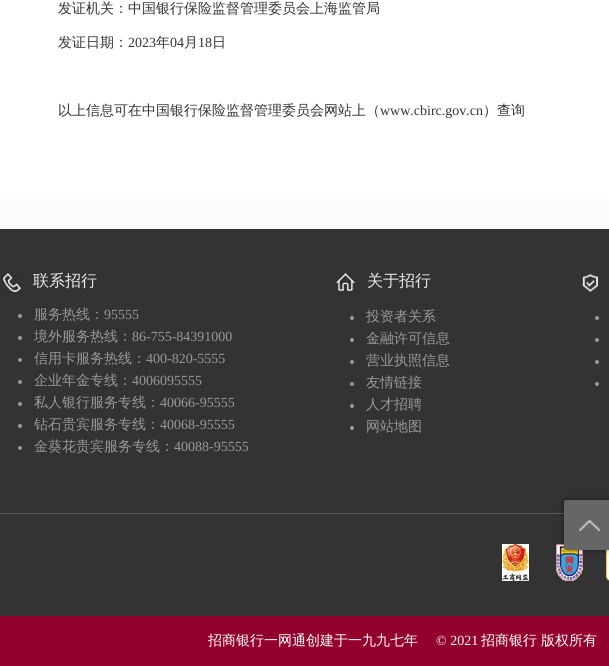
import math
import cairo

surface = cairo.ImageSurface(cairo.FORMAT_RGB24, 609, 666)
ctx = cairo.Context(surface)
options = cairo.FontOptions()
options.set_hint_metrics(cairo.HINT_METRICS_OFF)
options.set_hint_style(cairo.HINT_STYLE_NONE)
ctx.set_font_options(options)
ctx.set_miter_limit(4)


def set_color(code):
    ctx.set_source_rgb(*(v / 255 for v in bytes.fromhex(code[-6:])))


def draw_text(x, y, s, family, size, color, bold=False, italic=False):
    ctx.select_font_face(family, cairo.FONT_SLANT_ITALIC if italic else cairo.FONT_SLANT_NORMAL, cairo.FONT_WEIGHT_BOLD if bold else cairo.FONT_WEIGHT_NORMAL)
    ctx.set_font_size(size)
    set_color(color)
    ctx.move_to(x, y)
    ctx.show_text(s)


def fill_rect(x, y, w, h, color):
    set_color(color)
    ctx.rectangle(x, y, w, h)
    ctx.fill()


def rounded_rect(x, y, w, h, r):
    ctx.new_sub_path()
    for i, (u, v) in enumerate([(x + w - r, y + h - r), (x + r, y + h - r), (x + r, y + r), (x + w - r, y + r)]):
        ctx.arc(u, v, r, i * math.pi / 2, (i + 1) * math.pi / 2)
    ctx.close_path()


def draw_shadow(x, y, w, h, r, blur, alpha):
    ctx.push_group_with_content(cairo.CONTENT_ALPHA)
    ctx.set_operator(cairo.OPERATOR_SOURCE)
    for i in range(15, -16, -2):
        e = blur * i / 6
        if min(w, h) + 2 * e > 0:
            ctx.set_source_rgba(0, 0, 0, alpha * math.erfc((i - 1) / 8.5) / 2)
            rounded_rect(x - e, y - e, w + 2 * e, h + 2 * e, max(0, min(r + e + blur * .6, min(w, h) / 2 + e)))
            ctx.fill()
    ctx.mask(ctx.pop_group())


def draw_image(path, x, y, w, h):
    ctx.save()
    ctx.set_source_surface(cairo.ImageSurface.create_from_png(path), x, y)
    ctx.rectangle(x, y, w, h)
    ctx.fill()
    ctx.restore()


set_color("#fbfbfb")
ctx.paint()
fill_rect(0, 0, 609, 199, "#ffffff")
draw_text(58, 13, "发证机关：中国银行保险监督管理委员会上海监管局", "WenQuanYi Zen Hei Medium", 14, "#333333")
draw_text(58, 47, "发证日期：", "WenQuanYi Zen Hei Medium", 14, "#333333")
draw_text(128, 47, "2023", "Liberation Serif", 14, "#333333")
draw_text(156, 47, "年", "WenQuanYi Zen Hei Medium", 14, "#333333")
draw_text(170, 47, "04", "Liberation Serif", 14, "#333333")
draw_text(184, 47, "月", "WenQuanYi Zen Hei Medium", 14, "#333333")
draw_text(198, 47, "18", "Liberation Serif", 14, "#333333")
draw_text(212, 47, "日", "WenQuanYi Zen Hei Medium", 14, "#333333")
draw_text(58, 115, "以上信息可在中国银行保险监督管理委员会网站上（", "WenQuanYi Zen Hei Medium", 14, "#333333")
draw_text(380, 115, "www.cbirc.gov.cn", "Liberation Serif", 14, "#333333")
draw_text(483, 115, "）查询", "WenQuanYi Zen Hei Medium", 14, "#333333")
fill_rect(0, 229, 609, 387, "#333333")
fill_rect(0, 513, 564, 1, "#5c5c5c")
draw_image("assets/img1.png", 3, 273, 18, 19)
draw_text(33, 286, "联系招行", "WenQuanYi Zen Hei Medium", 16, "#ebebeb")
set_color("#999999")
ctx.new_path()
ctx.arc(20, 316, 2, 0, 2 * math.pi)
ctx.fill()
draw_text(34, 319, "服务热线：", "WenQuanYi Zen Hei Medium", 14, "#999999")
draw_text(104, 319, "95555", "Liberation Serif", 14, "#999999")
ctx.new_path()
ctx.arc(20, 338, 2, 0, 2 * math.pi)
ctx.fill()
draw_text(34, 341, "境外服务热线：", "WenQuanYi Zen Hei Medium", 14, "#999999")
draw_text(132, 341, "86-755-84391000", "Liberation Serif", 14, "#999999")
ctx.new_path()
ctx.arc(20, 360, 2, 0, 2 * math.pi)
ctx.fill()
draw_text(34, 363, "信用卡服务热线：", "WenQuanYi Zen Hei Medium", 14, "#999999")
draw_text(146, 363, "400-820-5555", "Liberation Serif", 14, "#999999")
ctx.new_path()
ctx.arc(20, 382, 2, 0, 2 * math.pi)
ctx.fill()
draw_text(34, 385, "企业年金专线：", "WenQuanYi Zen Hei Medium", 14, "#999999")
draw_text(132, 385, "4006095555", "Liberation Serif", 14, "#999999")
ctx.new_path()
ctx.arc(20, 404, 2, 0, 2 * math.pi)
ctx.fill()
draw_text(34, 407, "私人银行服务专线：", "WenQuanYi Zen Hei Medium", 14, "#999999")
draw_text(160, 407, "40066-95555", "Liberation Serif", 14, "#999999")
ctx.new_path()
ctx.arc(20, 426, 2, 0, 2 * math.pi)
ctx.fill()
draw_text(34, 429, "钻石贵宾服务专线：", "WenQuanYi Zen Hei Medium", 14, "#999999")
draw_text(160, 429, "40068-95555", "Liberation Serif", 14, "#999999")
ctx.new_path()
ctx.arc(20, 448, 2, 0, 2 * math.pi)
ctx.fill()
draw_text(34, 451, "金葵花贵宾服务专线：", "WenQuanYi Zen Hei Medium", 14, "#999999")
draw_text(174, 451, "40088-95555", "Liberation Serif", 14, "#999999")
draw_image("assets/img2.png", 336, 273, 19, 18)
draw_text(367, 286, "关于招行", "WenQuanYi Zen Hei Medium", 16, "#ebebeb")
set_color("#999999")
ctx.new_path()
ctx.arc(352, 318, 2, 0, 2 * math.pi)
ctx.fill()
draw_text(366, 321, "投资者关系", "WenQuanYi Zen Hei Medium", 14, "#999999")
ctx.new_path()
ctx.arc(352, 340, 2, 0, 2 * math.pi)
ctx.fill()
draw_text(366, 343, "金融许可信息", "WenQuanYi Zen Hei Medium", 14, "#999999")
ctx.new_path()
ctx.arc(352, 362, 2, 0, 2 * math.pi)
ctx.fill()
draw_text(366, 365, "营业执照信息", "WenQuanYi Zen Hei Medium", 14, "#999999")
ctx.new_path()
ctx.arc(352, 384, 2, 0, 2 * math.pi)
ctx.fill()
draw_text(366, 387, "友情链接", "WenQuanYi Zen Hei Medium", 14, "#999999")
ctx.new_path()
ctx.arc(352, 406, 2, 0, 2 * math.pi)
ctx.fill()
draw_text(366, 409, "人才招聘", "WenQuanYi Zen Hei Medium", 14, "#999999")
ctx.new_path()
ctx.arc(352, 428, 2, 0, 2 * math.pi)
ctx.fill()
draw_text(366, 431, "网站地图", "WenQuanYi Zen Hei Medium", 14, "#999999")
draw_image("assets/img3.png", 582, 274, 16, 18)
ctx.arc(597, 318, 2, 0, 2 * math.pi)
ctx.fill()
ctx.arc(597, 340, 2, 0, 2 * math.pi)
ctx.fill()
ctx.arc(597, 362, 2, 0, 2 * math.pi)
ctx.fill()
ctx.arc(597, 384, 2, 0, 2 * math.pi)
ctx.fill()
draw_image("assets/img4.png", 502, 544, 27, 37)
draw_image("assets/img5.png", 556, 544, 27, 37)
draw_image("assets/img6.png", 606, 550, 3, 31)
fill_rect(0, 616, 609, 50, "#92022c")
draw_text(208, 645, "招商银行一网通创建于一九九七年", "WenQuanYi Zen Hei Medium", 14, "#ffffff")
draw_text(436, 645, "© 2021", "Liberation Serif", 14, "#ffffff")
draw_text(481, 645, "招商银行", "WenQuanYi Zen Hei Medium", 14, "#ffffff")
draw_text(541, 645, "版权所有", "WenQuanYi Zen Hei Medium", 14, "#ffffff")
set_color("#000000")
draw_shadow(564, 500, 45, 50, 2, 3, 0.48)
set_color("#666666")
ctx.new_path()
ctx.move_to(566, 500)
ctx.line_to(609, 500)
ctx.line_to(609, 550)
ctx.line_to(566, 550)
ctx.curve_to(565, 550, 564, 549, 564, 548)
ctx.line_to(564, 502)
ctx.curve_to(564, 501, 565, 500, 566, 500)
ctx.close_path()
ctx.fill()
draw_image("assets/img7.png", 579, 520, 21, 11)
surface.write_to_png("output.png")
